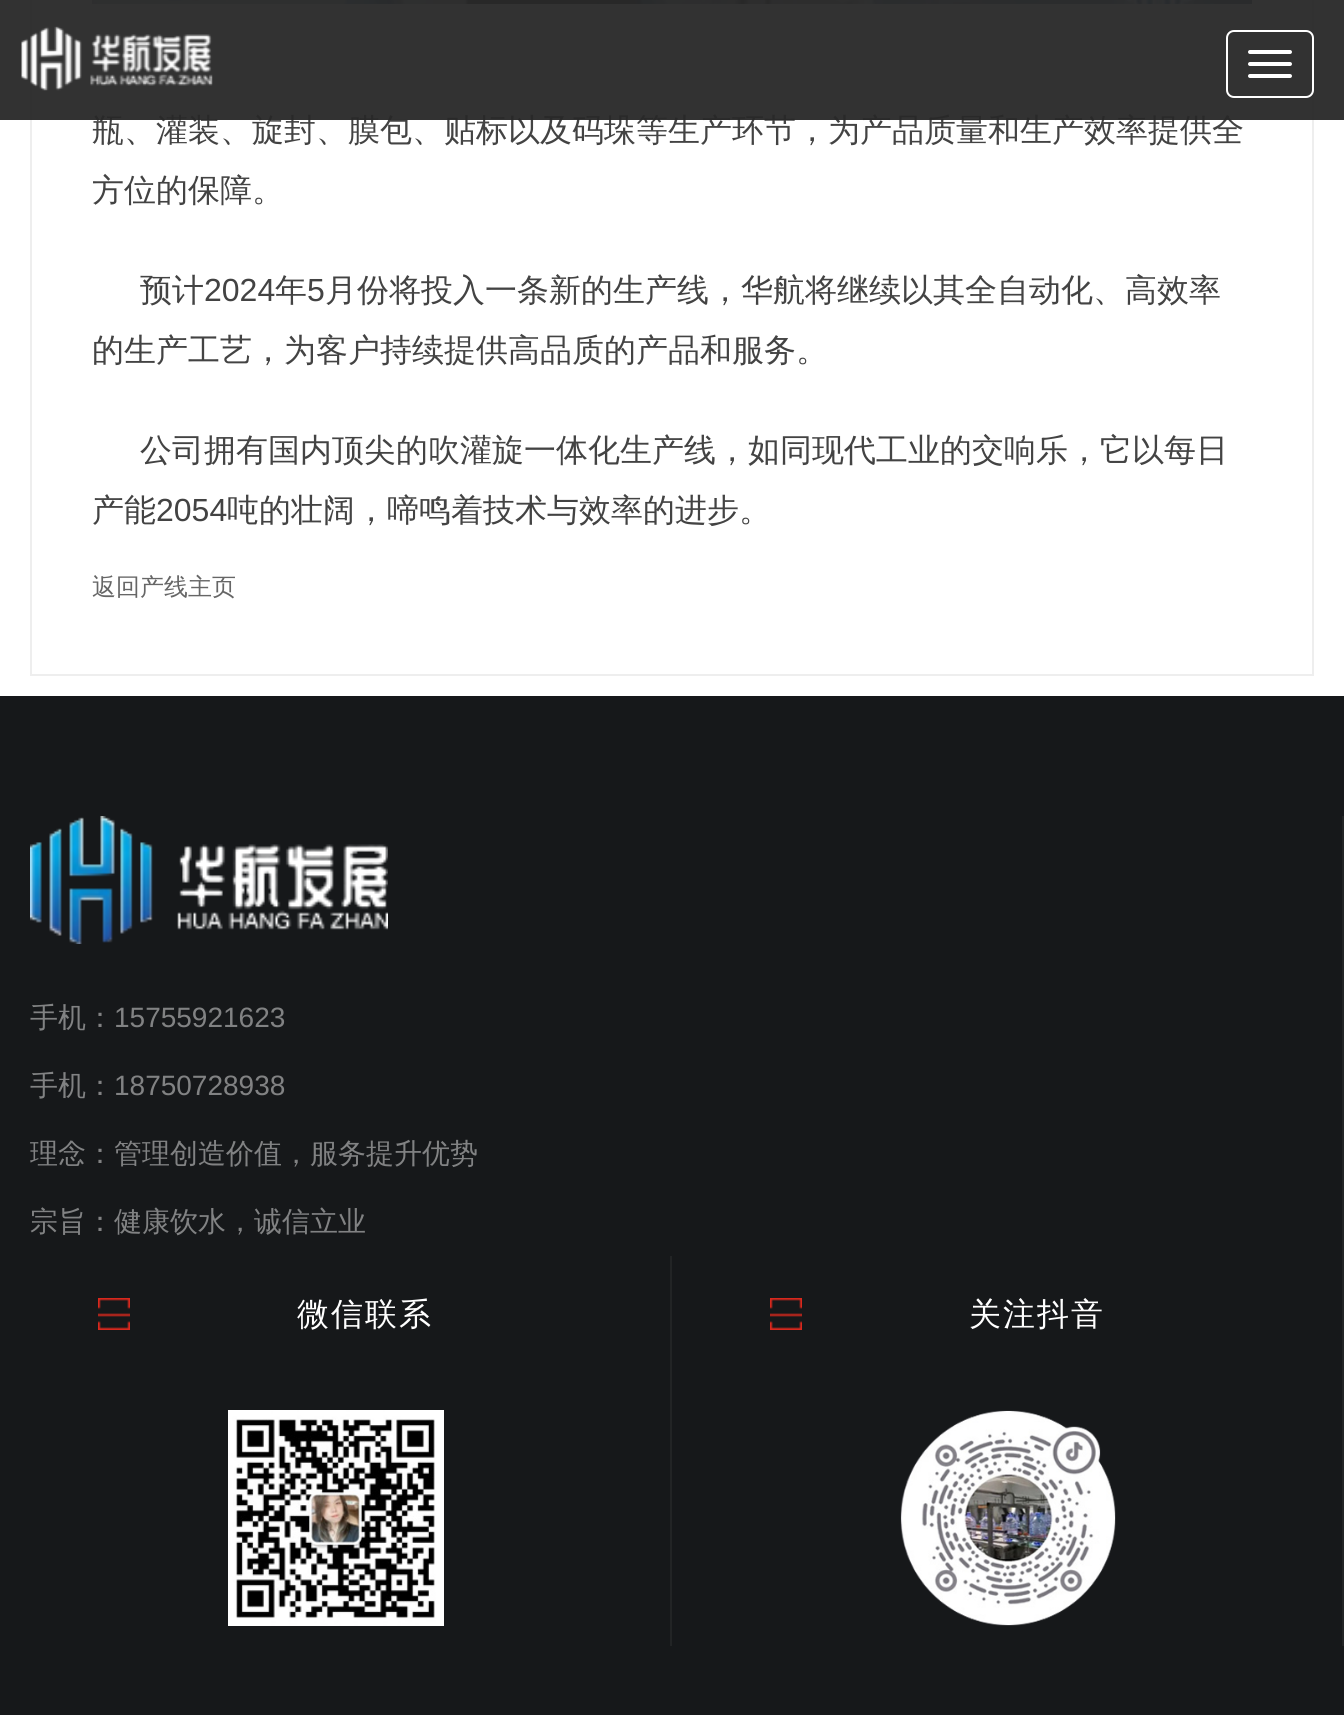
import math
import cairo

surface = cairo.ImageSurface(cairo.FORMAT_RGB24, 1344, 1715)
ctx = cairo.Context(surface)
options = cairo.FontOptions()
options.set_hint_metrics(cairo.HINT_METRICS_OFF)
options.set_hint_style(cairo.HINT_STYLE_NONE)
ctx.set_font_options(options)
ctx.set_miter_limit(4)


def set_color(code):
    ctx.set_source_rgb(*(v / 255 for v in bytes.fromhex(code[-6:])))


def draw_text(x, y, s, family, size, color, bold=False, italic=False):
    ctx.select_font_face(family, cairo.FONT_SLANT_ITALIC if italic else cairo.FONT_SLANT_NORMAL, cairo.FONT_WEIGHT_BOLD if bold else cairo.FONT_WEIGHT_NORMAL)
    ctx.set_font_size(size)
    set_color(color)
    ctx.move_to(x, y)
    ctx.show_text(s)


def draw_spaced(x, y, s, letter, word):
    ctx.move_to(x, y)
    for ch in s:
        ctx.show_text(ch)
        ctx.rel_move_to(letter + word * (ch == ' '), 0)


def fill_rect(x, y, w, h, color):
    set_color(color)
    ctx.rectangle(x, y, w, h)
    ctx.fill()


def rounded_rect(x, y, w, h, r):
    ctx.new_sub_path()
    for i, (u, v) in enumerate([(x + w - r, y + h - r), (x + r, y + h - r), (x + r, y + r), (x + w - r, y + r)]):
        ctx.arc(u, v, r, i * math.pi / 2, (i + 1) * math.pi / 2)
    ctx.close_path()


def draw_image(path, x, y, w, h):
    ctx.save()
    ctx.set_source_surface(cairo.ImageSurface.create_from_png(path), x, y)
    ctx.rectangle(x, y, w, h)
    ctx.fill()
    ctx.restore()


set_color("#ffffff")
ctx.paint()
ctx.rectangle(31, -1, 1282, 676)
set_color("#eeeeee")
ctx.stroke()
draw_image("assets/img2.png", 92, 0, 1160, 4)
draw_text(92, 141, "瓶、灌装、旋封、膜包、贴标以及码垛等生产环节，为产品质量和生产效率提供全", "WenQuanYi Zen Hei Medium", 32, "#434343")
ctx.set_source_rgba(0.157, 0.157, 0.157, 0.95)
ctx.rectangle(0, 0, 1344, 120)
ctx.fill()
draw_image("assets/img1.png", 21, 26, 192, 65)
rounded_rect(1227, 31, 86, 66, 7)
set_color("#ffffff")
ctx.stroke()
rounded_rect(1248, 50, 44, 4, 2)
ctx.fill()
rounded_rect(1248, 62, 44, 4, 2)
ctx.fill()
rounded_rect(1248, 74, 44, 4, 2)
ctx.fill()
draw_text(92, 201, "方位的保障。", "WenQuanYi Zen Hei Medium", 32, "#434343")
draw_text(140, 301, "预计", "WenQuanYi Zen Hei Medium", 32, "#434343")
draw_text(204, 301, "2024", "Liberation Sans", 32, "#434343")
draw_text(275, 301, "年", "WenQuanYi Zen Hei Medium", 32, "#434343")
draw_text(307, 301, "5", "Liberation Sans", 32, "#434343")
draw_text(325, 301, "月份将投入一条新的生产线，华航将继续以其全自动化、高效率", "WenQuanYi Zen Hei Medium", 32, "#434343")
draw_text(92, 361, "的生产工艺，为客户持续提供高品质的产品和服务。", "WenQuanYi Zen Hei Medium", 32, "#434343")
draw_text(140, 461, "公司拥有国内顶尖的吹灌旋一体化生产线，如同现代工业的交响乐，它以每日", "WenQuanYi Zen Hei Medium", 32, "#434343")
draw_text(92, 521, "产能", "WenQuanYi Zen Hei Medium", 32, "#434343")
draw_text(156, 521, "2054", "Liberation Sans", 32, "#434343")
draw_text(227, 521, "吨的壮阔，啼鸣着技术与效率的进步。", "WenQuanYi Zen Hei Medium", 32, "#434343")
draw_text(92, 595, "返回产线主页", "WenQuanYi Zen Hei Medium", 24, "#666666")
fill_rect(0, 696, 1344, 1019, "#16181a")
fill_rect(1342, 816, 2, 830, "#222425")
draw_image("assets/img3.png", 30, 816, 358, 128)
draw_text(30, 1027, "手机：", "WenQuanYi Zen Hei Medium", 28, "#818283")
draw_text(114, 1027, "15755921623", "Liberation Sans", 28, "#818283")
draw_text(30, 1095, "手机：", "WenQuanYi Zen Hei Medium", 28, "#818283")
draw_text(114, 1095, "18750728938", "Liberation Sans", 28, "#818283")
draw_text(30, 1163, "理念：管理创造价值，服务提升优势", "WenQuanYi Zen Hei Medium", 28, "#818283")
draw_text(30, 1231, "宗旨：健康饮水，诚信立业", "WenQuanYi Zen Hei Medium", 28, "#818283")
fill_rect(670, 1256, 2, 390, "#222425")
draw_image("assets/img4.png", 98, 1298, 32, 32)
ctx.set_font_size(32)
set_color("#ffffff")
draw_spaced(297, 1325, "微信联系", 2, 0)
draw_image("assets/img5.png", 228, 1410, 216, 216)
draw_image("assets/img4.png", 770, 1298, 32, 32)
draw_spaced(969, 1325, "关注抖音", 2, 0)
draw_image("assets/img6.png", 900, 1410, 216, 216)
surface.write_to_png("output.png")
